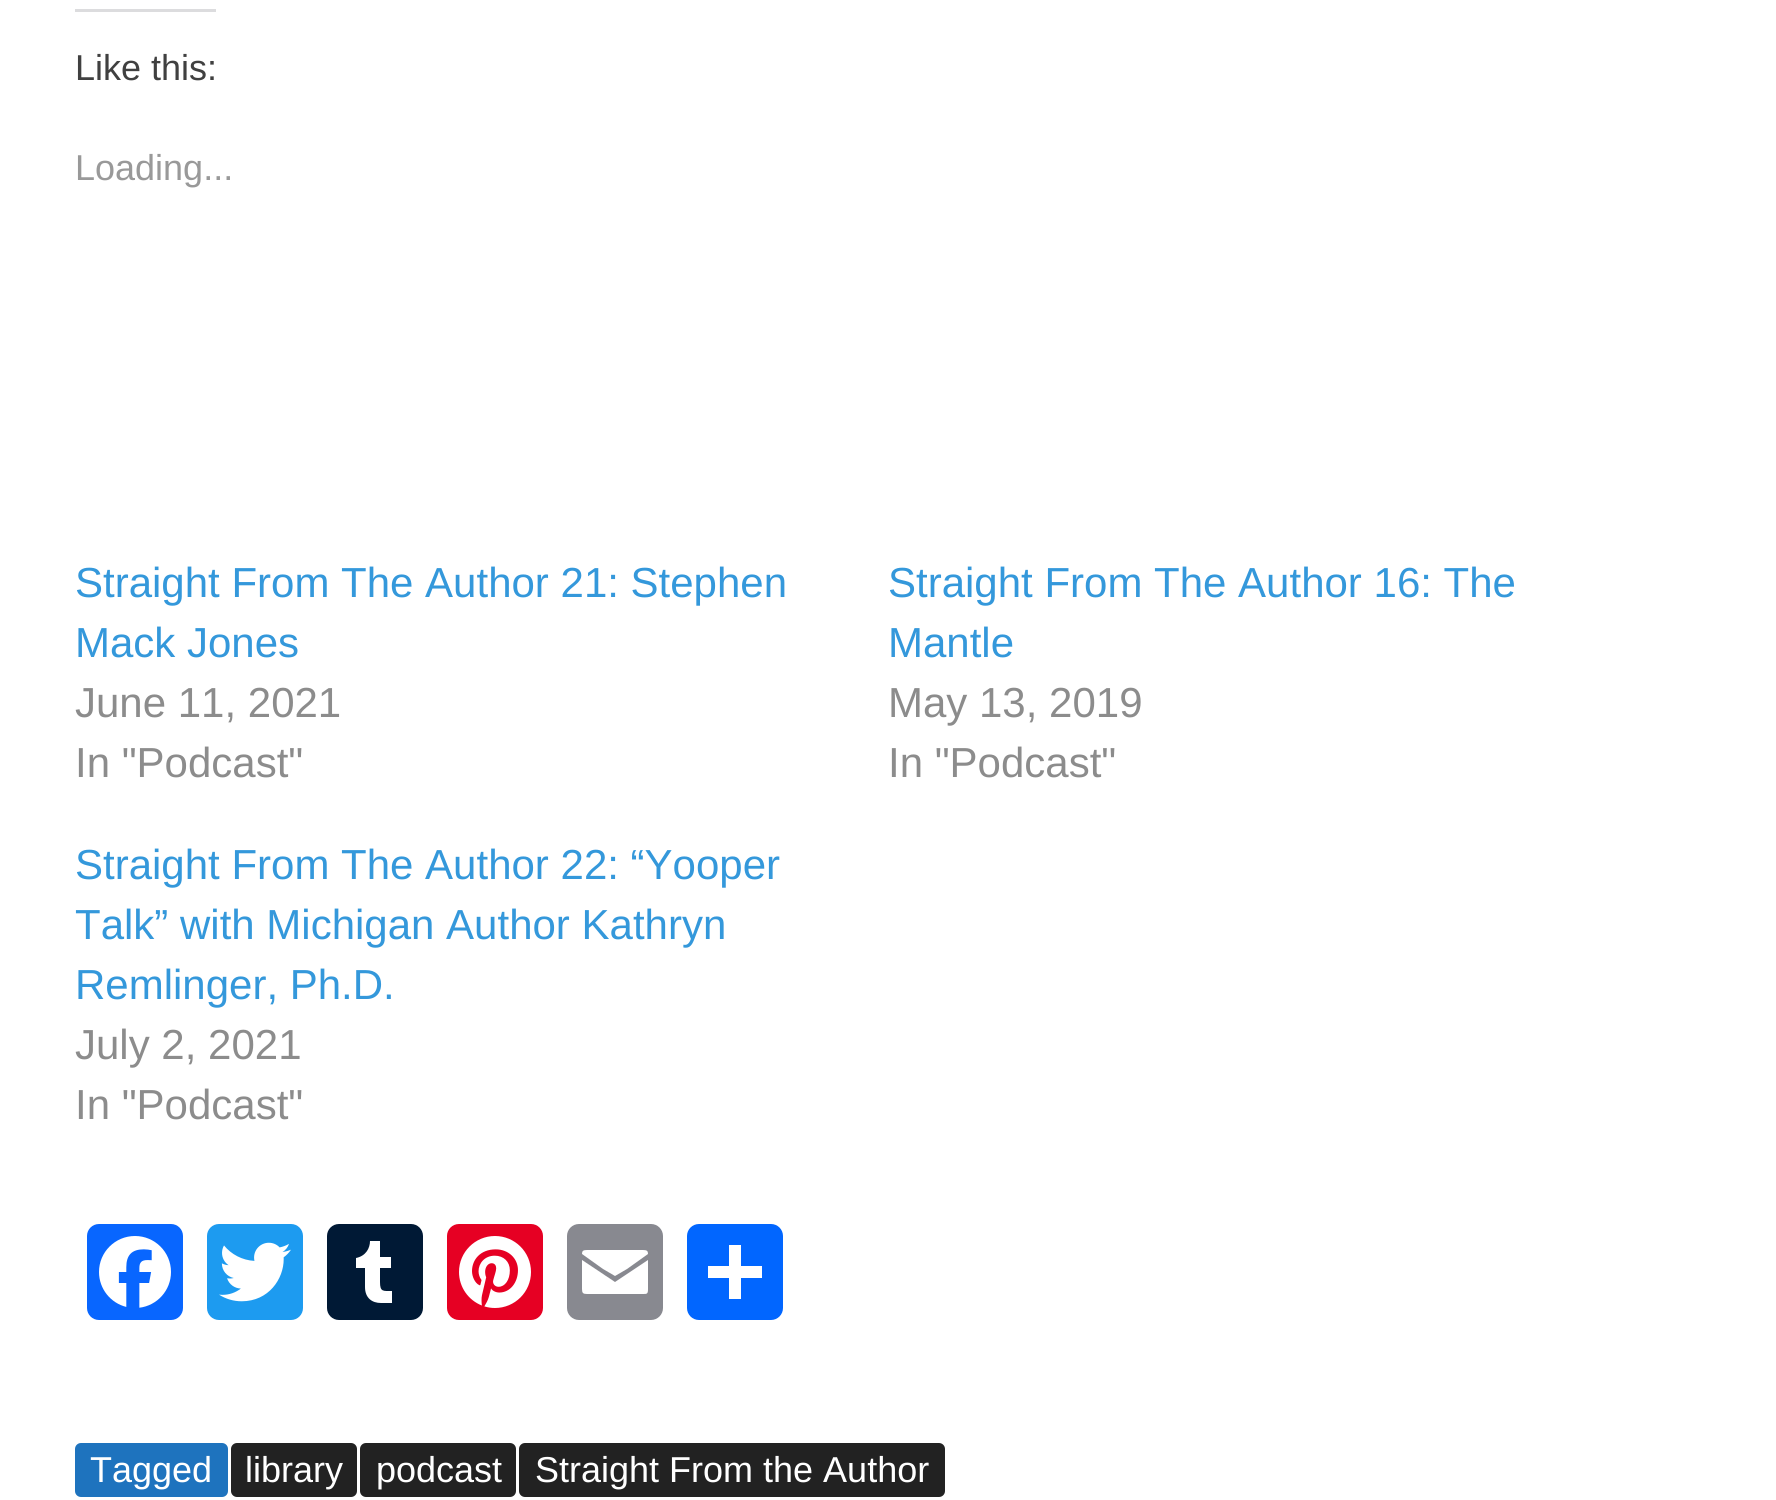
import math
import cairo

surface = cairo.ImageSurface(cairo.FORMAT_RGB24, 1776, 1500)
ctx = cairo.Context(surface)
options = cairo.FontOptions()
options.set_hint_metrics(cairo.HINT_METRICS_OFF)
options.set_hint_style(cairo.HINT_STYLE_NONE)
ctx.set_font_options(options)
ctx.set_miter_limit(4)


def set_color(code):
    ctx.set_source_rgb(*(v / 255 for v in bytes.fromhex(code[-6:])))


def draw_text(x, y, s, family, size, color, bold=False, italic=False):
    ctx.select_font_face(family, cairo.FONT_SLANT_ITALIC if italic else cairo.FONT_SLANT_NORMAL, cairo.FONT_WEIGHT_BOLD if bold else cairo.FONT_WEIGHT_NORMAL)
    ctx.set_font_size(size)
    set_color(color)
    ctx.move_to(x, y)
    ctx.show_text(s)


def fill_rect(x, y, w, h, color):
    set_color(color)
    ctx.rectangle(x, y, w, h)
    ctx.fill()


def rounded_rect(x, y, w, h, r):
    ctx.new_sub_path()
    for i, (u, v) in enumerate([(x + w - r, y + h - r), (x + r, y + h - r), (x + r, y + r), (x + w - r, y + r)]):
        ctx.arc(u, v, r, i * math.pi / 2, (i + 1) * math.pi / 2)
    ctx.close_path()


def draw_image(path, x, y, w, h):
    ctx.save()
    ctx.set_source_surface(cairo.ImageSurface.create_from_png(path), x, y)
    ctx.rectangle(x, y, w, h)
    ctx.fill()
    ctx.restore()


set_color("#ffffff")
ctx.paint()
fill_rect(75, 9, 141, 3, "#dcdcde")
draw_text(75, 80, "Like this:", "Liberation Sans", 36, "#404040")
draw_text(75, 180, "Loading...", "Liberation Sans", 36, "#999999")
draw_text(75, 597, "Straight From The Author 21: Stephen", "Liberation Sans", 42, "#3498db")
draw_text(75, 657, "Mack Jones", "Liberation Sans", 42, "#3498db")
draw_text(75, 717, "June 11, 2021", "Liberation Sans", 42, "#8c8c8c")
draw_text(75, 777, "In \"Podcast\"", "Liberation Sans", 42, "#8c8c8c")
draw_text(888, 597, "Straight From The Author 16: The", "Liberation Sans", 42, "#3498db")
draw_text(888, 657, "Mantle", "Liberation Sans", 42, "#3498db")
draw_text(888, 717, "May 13, 2019", "Liberation Sans", 42, "#8c8c8c")
draw_text(888, 777, "In \"Podcast\"", "Liberation Sans", 42, "#8c8c8c")
draw_text(75, 879, "Straight From The Author 22: “Yooper", "Liberation Sans", 42, "#3498db")
draw_text(75, 939, "Talk” with Michigan Author Kathryn", "Liberation Sans", 42, "#3498db")
draw_text(75, 999, "Remlinger, Ph.D.", "Liberation Sans", 42, "#3498db")
draw_text(75, 1059, "July 2, 2021", "Liberation Sans", 42, "#8c8c8c")
draw_text(75, 1119, "In \"Podcast\"", "Liberation Sans", 42, "#8c8c8c")
set_color("#0866ff")
rounded_rect(87, 1224, 96, 96, 12)
ctx.fill()
draw_image("assets/img1.png", 99, 1236, 72, 72)
set_color("#1d9bf0")
rounded_rect(207, 1224, 96, 96, 12)
ctx.fill()
draw_image("assets/img2.png", 219, 1242, 72, 60)
set_color("#001935")
rounded_rect(327, 1224, 96, 96, 12)
ctx.fill()
set_color("#ffffff")
ctx.set_fill_rule(cairo.FILL_RULE_EVEN_ODD)
ctx.new_path()
ctx.move_to(392, 1303)
ctx.line_to(381, 1303)
ctx.curve_to(372, 1303, 365, 1298, 365, 1287)
ctx.line_to(365, 1268)
ctx.line_to(356, 1268)
ctx.line_to(356, 1258)
ctx.curve_to(366, 1256, 370, 1248, 370, 1241)
ctx.line_to(380, 1241)
ctx.line_to(380, 1257)
ctx.line_to(391, 1257)
ctx.line_to(391, 1268)
ctx.line_to(380, 1268)
ctx.line_to(380, 1282)
ctx.curve_to(380, 1292, 383, 1291, 392, 1291)
ctx.close_path()
ctx.fill()
set_color("#e60023")
rounded_rect(447, 1224, 96, 96, 12)
ctx.fill()
draw_image("assets/img3.png", 459, 1236, 72, 72)
set_color("#888990")
rounded_rect(567, 1224, 96, 96, 12)
ctx.fill()
set_color("#ffffff")
ctx.set_fill_rule(cairo.FILL_RULE_WINDING)
ctx.new_path()
ctx.move_to(648, 1289)
ctx.line_to(648, 1260)
ctx.line_to(615, 1282)
ctx.line_to(582, 1260)
ctx.line_to(582, 1289)
ctx.curve_to(582, 1293, 583, 1294, 587, 1294)
ctx.line_to(643, 1294)
ctx.curve_to(647, 1294, 648, 1294, 648, 1289)
ctx.move_to(648, 1254)
ctx.curve_to(648, 1251, 647, 1250, 643, 1250)
ctx.line_to(587, 1250)
ctx.curve_to(583, 1250, 582, 1251, 582, 1254)
ctx.line_to(603, 1269)
ctx.line_to(615, 1276)
ctx.line_to(627, 1269)
ctx.close_path()
ctx.fill()
set_color("#0166ff")
rounded_rect(687, 1224, 96, 96, 12)
ctx.fill()
fill_rect(729, 1245, 12, 54, "#ffffff")
fill_rect(708, 1266, 54, 12, "#ffffff")
set_color("#1e73be")
rounded_rect(75, 1443, 153, 54, 6)
ctx.fill()
draw_text(90, 1482, "Tagged", "Liberation Sans", 36, "#ffffff")
set_color("#222222")
rounded_rect(231, 1443, 126, 54, 6)
ctx.fill()
draw_text(245, 1482, "library", "Liberation Sans", 36, "#ffffff")
set_color("#222222")
rounded_rect(360, 1443, 156, 54, 6)
ctx.fill()
draw_text(376, 1482, "podcast", "Liberation Sans", 36, "#ffffff")
set_color("#222222")
rounded_rect(519, 1443, 426, 54, 6)
ctx.fill()
draw_text(535, 1482, "Straight From the Author", "Liberation Sans", 36, "#ffffff")
surface.write_to_png("output.png")
